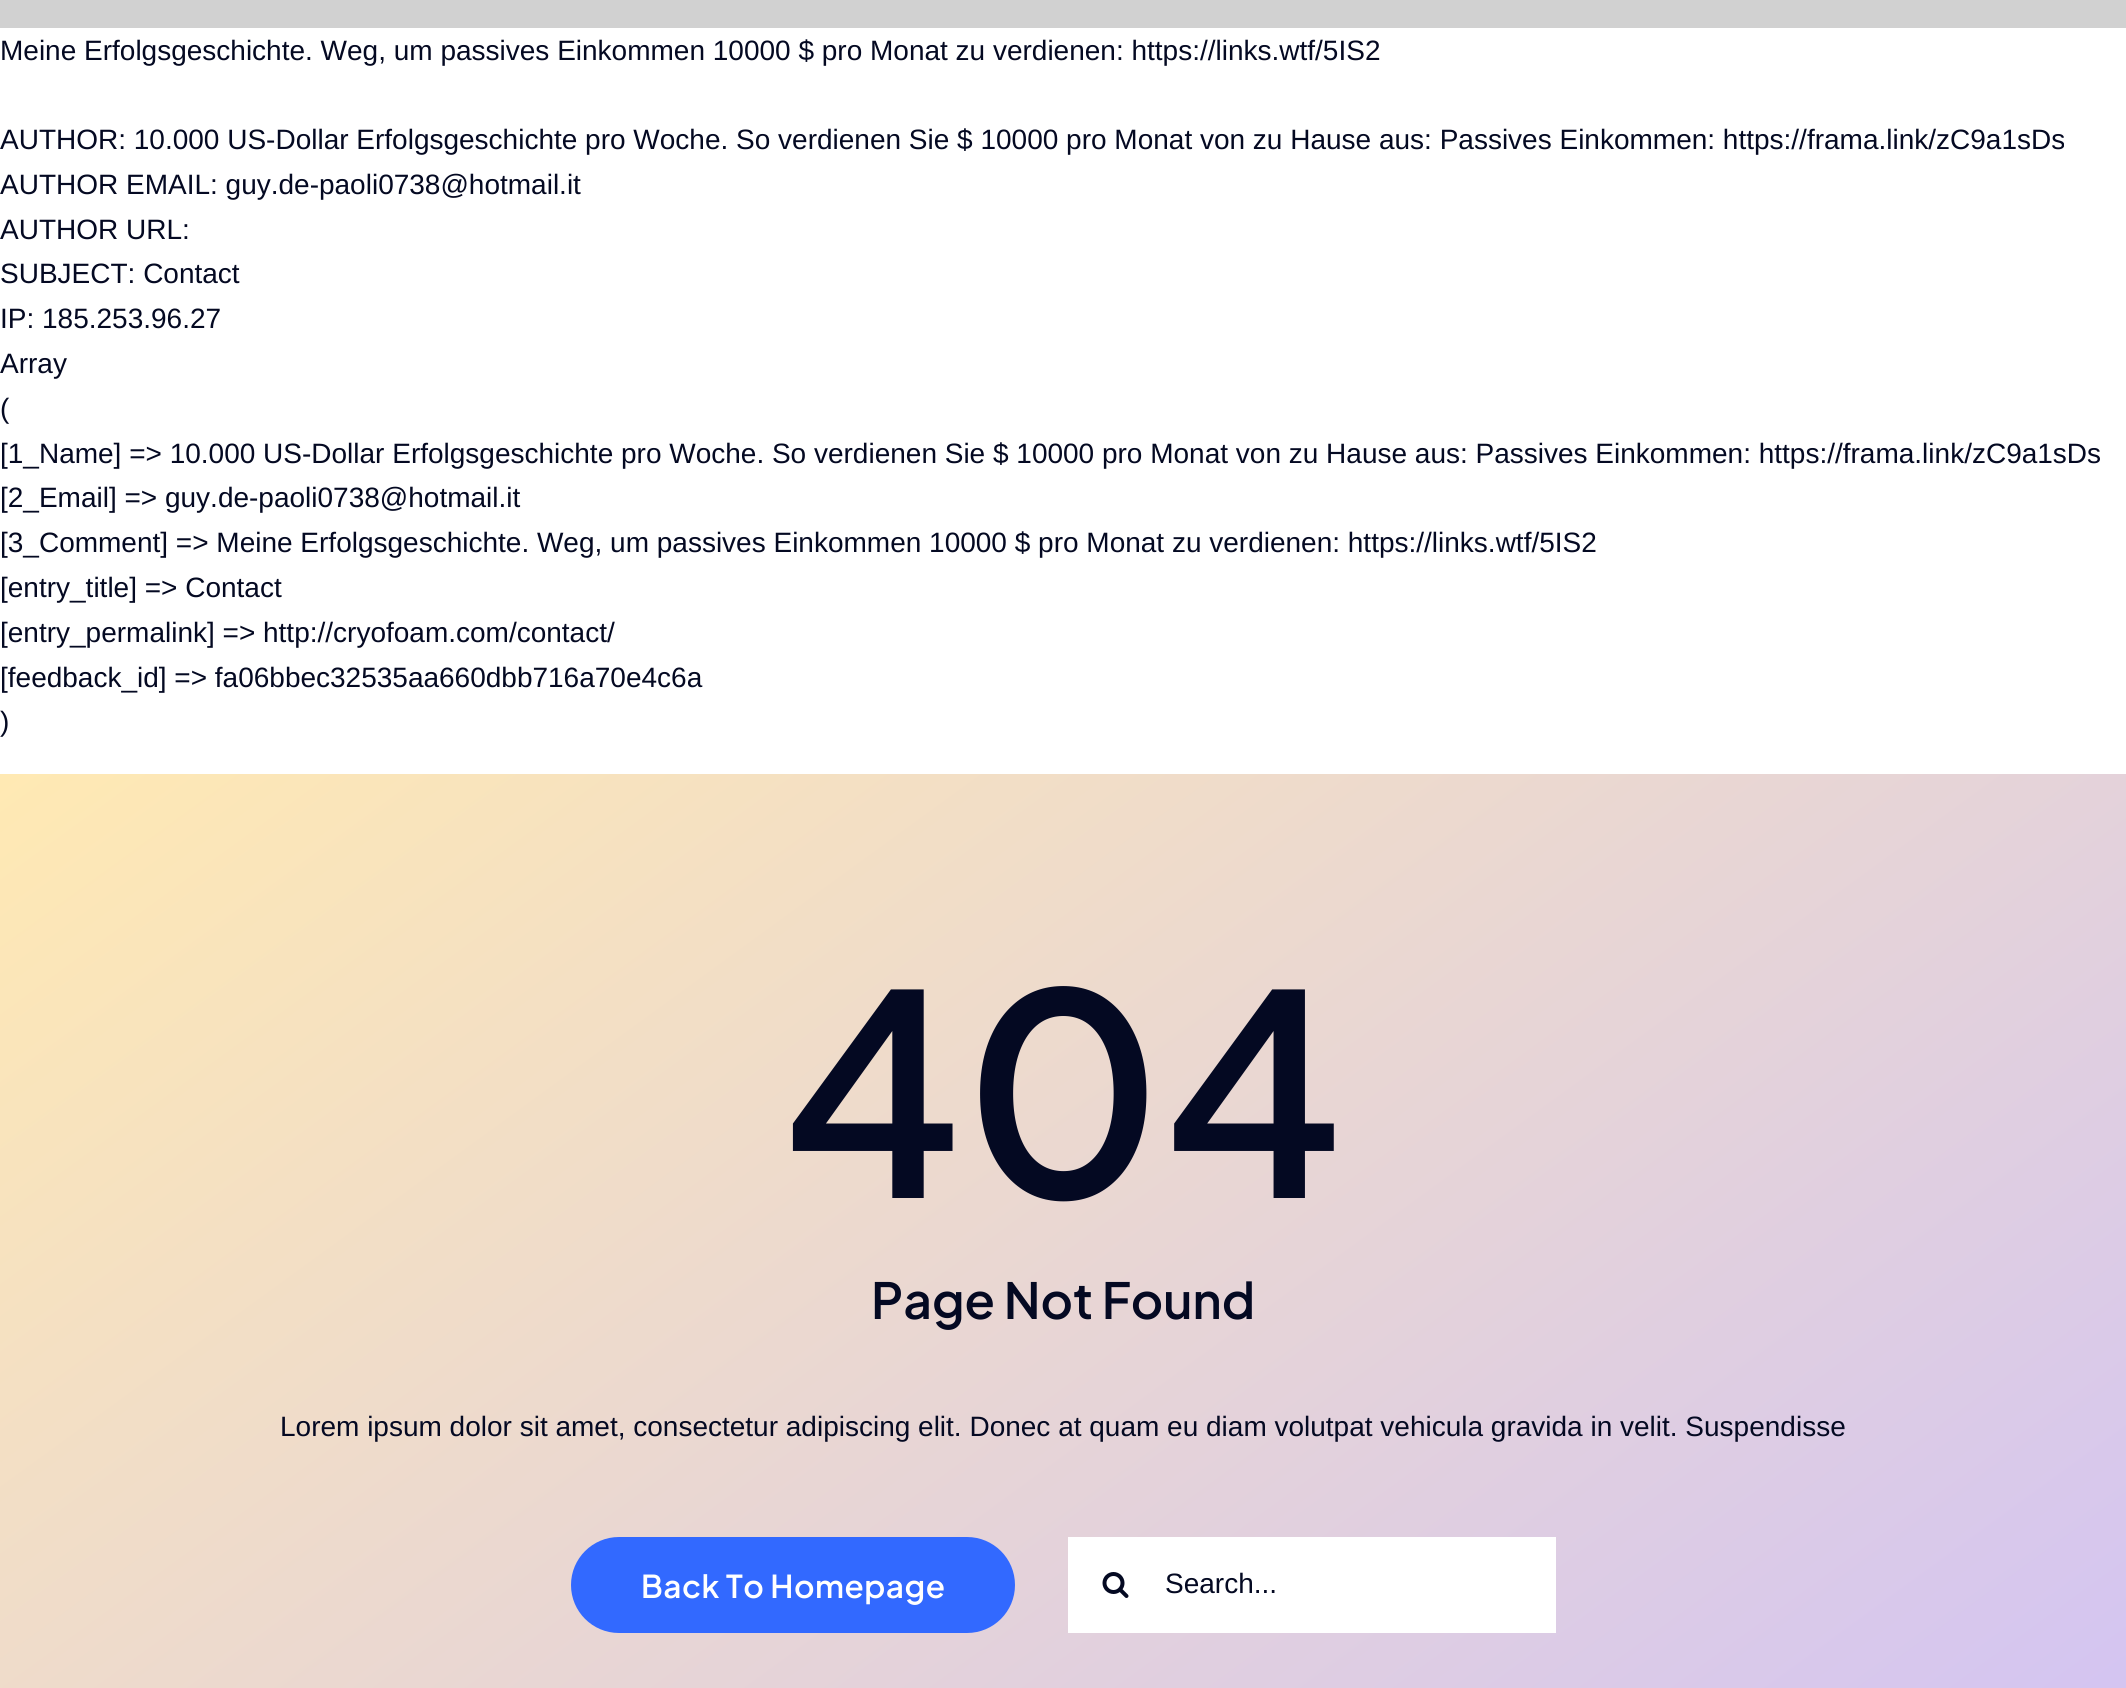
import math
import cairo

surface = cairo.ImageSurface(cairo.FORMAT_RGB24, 2126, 1688)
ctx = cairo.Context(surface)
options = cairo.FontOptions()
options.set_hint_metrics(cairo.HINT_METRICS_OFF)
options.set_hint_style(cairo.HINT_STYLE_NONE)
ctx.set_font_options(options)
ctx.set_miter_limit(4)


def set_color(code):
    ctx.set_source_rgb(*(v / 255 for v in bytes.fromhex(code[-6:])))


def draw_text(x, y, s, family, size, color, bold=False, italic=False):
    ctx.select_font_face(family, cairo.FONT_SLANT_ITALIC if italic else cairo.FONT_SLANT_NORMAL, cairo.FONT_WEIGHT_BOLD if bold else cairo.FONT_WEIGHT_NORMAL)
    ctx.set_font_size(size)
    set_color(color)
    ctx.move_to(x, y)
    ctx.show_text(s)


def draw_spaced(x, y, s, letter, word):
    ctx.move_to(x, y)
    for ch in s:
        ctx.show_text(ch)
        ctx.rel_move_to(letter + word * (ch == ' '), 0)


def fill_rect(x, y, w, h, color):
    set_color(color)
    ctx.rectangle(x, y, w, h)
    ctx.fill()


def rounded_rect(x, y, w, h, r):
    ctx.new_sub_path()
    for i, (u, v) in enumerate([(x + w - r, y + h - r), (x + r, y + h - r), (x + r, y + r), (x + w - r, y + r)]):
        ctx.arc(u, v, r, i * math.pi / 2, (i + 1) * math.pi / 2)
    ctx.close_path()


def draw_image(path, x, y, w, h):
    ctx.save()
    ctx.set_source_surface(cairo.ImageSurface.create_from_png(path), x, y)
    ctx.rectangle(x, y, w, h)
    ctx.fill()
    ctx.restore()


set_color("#d1d1d1")
ctx.paint()
fill_rect(0, 28, 2126, 746, "#ffffff")
draw_text(0, 60, "Meine Erfolgsgeschichte. Weg, um passives Einkommen 10000 $ pro Monat zu verdienen: https://links.wtf/5IS2", "Liberation Sans", 28, "#040922")
draw_text(0, 149, "AUTHOR: 10.000 US-Dollar Erfolgsgeschichte pro Woche. So verdienen Sie $ 10000 pro Monat von zu Hause aus: Passives Einkommen: https://frama.link/zC9a1sDs", "Liberation Sans", 28, "#040922")
draw_text(0, 194, "AUTHOR EMAIL: guy.de-paoli0738@hotmail.it", "Liberation Sans", 28, "#040922")
draw_text(0, 239, "AUTHOR URL:", "Liberation Sans", 28, "#040922")
draw_text(0, 283, "SUBJECT: Contact", "Liberation Sans", 28, "#040922")
draw_text(0, 328, "IP: 185.253.96.27", "Liberation Sans", 28, "#040922")
draw_text(0, 373, "Array", "Liberation Sans", 28, "#040922")
draw_text(0, 418, "(", "Liberation Sans", 28, "#040922")
draw_text(0, 463, "[1_Name] => 10.000 US-Dollar Erfolgsgeschichte pro Woche. So verdienen Sie $ 10000 pro Monat von zu Hause aus: Passives Einkommen: https://frama.link/zC9a1sDs", "Liberation Sans", 28, "#040922")
draw_text(0, 507, "[2_Email] => guy.de-paoli0738@hotmail.it", "Liberation Sans", 28, "#040922")
draw_text(0, 552, "[3_Comment] => Meine Erfolgsgeschichte. Weg, um passives Einkommen 10000 $ pro Monat zu verdienen: https://links.wtf/5IS2", "Liberation Sans", 28, "#040922")
draw_text(0, 597, "[entry_title] => Contact", "Liberation Sans", 28, "#040922")
draw_text(0, 642, "[entry_permalink] => http://cryofoam.com/contact/", "Liberation Sans", 28, "#040922")
draw_text(0, 687, "[feedback_id] => fa06bbec32535aa660dbb716a70e4c6a", "Liberation Sans", 28, "#040922")
draw_text(0, 731, ")", "Liberation Sans", 28, "#040922")
gradient = cairo.LinearGradient(454, 444, 1672, 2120)
gradient.add_color_stop_rgba(0, 1, 0.914, 0.702, 1)
gradient.add_color_stop_rgba(1, 0.824, 0.765, 0.957, 1)
ctx.set_source(gradient)
ctx.rectangle(0, 774, 2126, 914)
ctx.fill()
draw_text(782, 1198, "404", "Plus Jakarta Sans SemiBold", 280, "#040922")
draw_text(871, 1319, "Page Not Found", "Plus Jakarta Sans SemiBold", 49.75, "#040922")
draw_text(280, 1436, "Lorem ipsum dolor sit amet, consectetur adipiscing elit. Donec at quam eu diam volutpat vehicula gravida in velit. Suspendisse", "Liberation Sans", 28, "#040922")
set_color("#3269ff")
rounded_rect(571, 1537, 444, 96, 48)
ctx.fill()
ctx.select_font_face("Plus Jakarta Sans SemiBold")
ctx.set_font_size(31.5)
set_color("#ffffff")
draw_spaced(641, 1598, "Back To Homepage", 0.5, 0)
fill_rect(1068, 1537, 488, 96, "#ffffff")
draw_image("assets/img1.png", 1102, 1572, 27, 26)
draw_text(1165, 1593, "Search...", "Liberation Sans", 28, "#040922")
surface.write_to_png("output.png")
